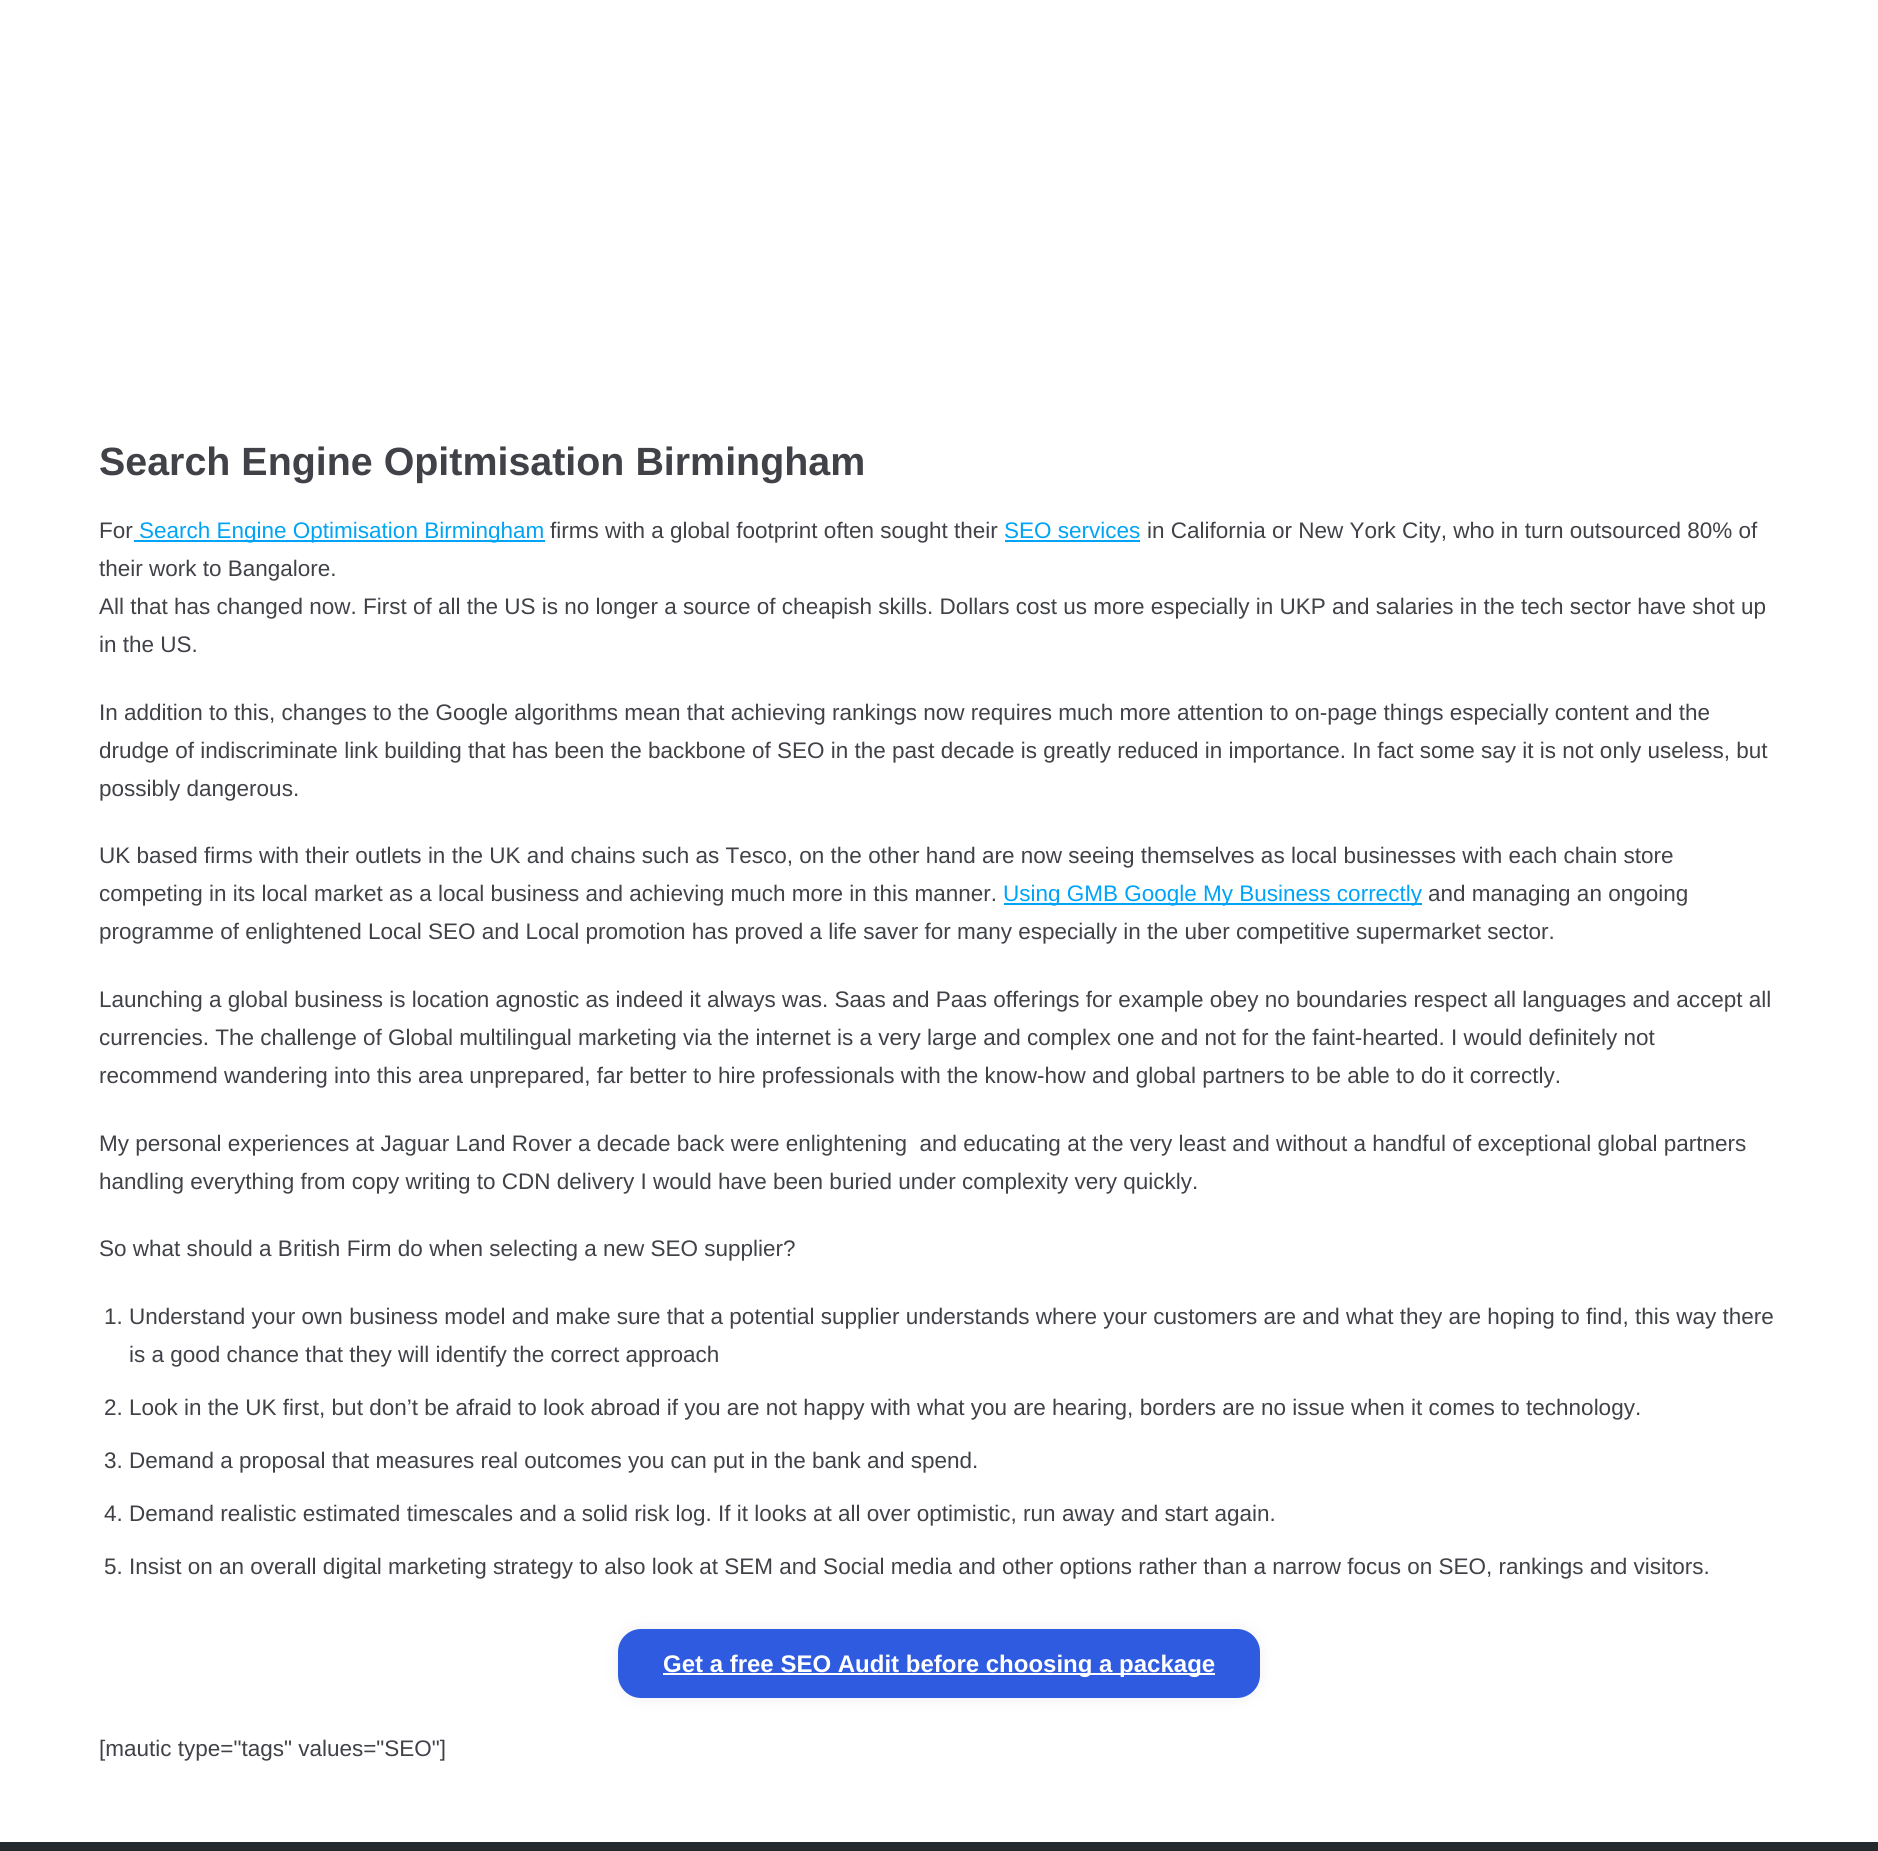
import math
import cairo

surface = cairo.ImageSurface(cairo.FORMAT_RGB24, 1878, 1851)
ctx = cairo.Context(surface)
options = cairo.FontOptions()
options.set_hint_metrics(cairo.HINT_METRICS_OFF)
options.set_hint_style(cairo.HINT_STYLE_NONE)
ctx.set_font_options(options)
ctx.set_miter_limit(4)


def set_color(code):
    ctx.set_source_rgb(*(v / 255 for v in bytes.fromhex(code[-6:])))


def draw_text(x, y, s, family, size, color, bold=False, italic=False):
    ctx.select_font_face(family, cairo.FONT_SLANT_ITALIC if italic else cairo.FONT_SLANT_NORMAL, cairo.FONT_WEIGHT_BOLD if bold else cairo.FONT_WEIGHT_NORMAL)
    ctx.set_font_size(size)
    set_color(color)
    ctx.move_to(x, y)
    ctx.show_text(s)


def fill_rect(x, y, w, h, color):
    set_color(color)
    ctx.rectangle(x, y, w, h)
    ctx.fill()


def rounded_rect(x, y, w, h, r):
    ctx.new_sub_path()
    for i, (u, v) in enumerate([(x + w - r, y + h - r), (x + r, y + h - r), (x + r, y + r), (x + w - r, y + r)]):
        ctx.arc(u, v, r, i * math.pi / 2, (i + 1) * math.pi / 2)
    ctx.close_path()


def draw_shadow(x, y, w, h, r, blur, alpha):
    ctx.push_group_with_content(cairo.CONTENT_ALPHA)
    ctx.set_operator(cairo.OPERATOR_SOURCE)
    for i in range(15, -16, -2):
        e = blur * i / 6
        if min(w, h) + 2 * e > 0:
            ctx.set_source_rgba(0, 0, 0, alpha * math.erfc((i - 1) / 8.5) / 2)
            rounded_rect(x - e, y - e, w + 2 * e, h + 2 * e, max(0, min(r + e + blur * .6, min(w, h) / 2 + e)))
            ctx.fill()
    ctx.mask(ctx.pop_group())


set_color("#ffffff")
ctx.paint()
draw_text(99, 475, "Search Engine Opitmisation Birmingham", "Liberation Sans", 39.4, "#404248", bold=True)
draw_text(99, 538, "For", "Liberation Sans", 22.5, "#404248")
fill_rect(134, 540, 411, 2, "#00a4f7")
draw_text(139, 538, "Search Engine Optimisation Birmingham", "Liberation Sans", 22.5, "#00a4f7")
draw_text(550, 538, "firms with a global footprint often sought their", "Liberation Sans", 22.5, "#404248")
draw_text(1004, 538, "SEO services", "Liberation Sans", 22.5, "#00a4f7")
fill_rect(1005, 540, 135, 2, "#00a4f7")
draw_text(1147, 538, "in California or New York City, who in turn outsourced 80% of", "Liberation Sans", 22.5, "#404248")
draw_text(99, 576, "their work to Bangalore.", "Liberation Sans", 22.5, "#404248")
draw_text(99, 614, "All that has changed now. First of all the US is no longer a source of cheapish skills. Dollars cost us more especially in UKP and salaries in the tech sector have shot up", "Liberation Sans", 22.5, "#404248")
draw_text(99, 652, "in the US.", "Liberation Sans", 22.5, "#404248")
draw_text(99, 720, "In addition to this, changes to the Google algorithms mean that achieving rankings now requires much more attention to on-page things especially content and the", "Liberation Sans", 22.5, "#404248")
draw_text(99, 758, "drudge of indiscriminate link building that has been the backbone of SEO in the past decade is greatly reduced in importance. In fact some say it is not only useless, but", "Liberation Sans", 22.5, "#404248")
draw_text(99, 796, "possibly dangerous.", "Liberation Sans", 22.5, "#404248")
draw_text(99, 863, "UK based firms with their outlets in the UK and chains such as Tesco, on the other hand are now seeing themselves as local businesses with each chain store", "Liberation Sans", 22.5, "#404248")
draw_text(99, 901, "competing in its local market as a local business and achieving much more in this manner.", "Liberation Sans", 22.5, "#404248")
fill_rect(1004, 903, 418, 2, "#00a4f7")
draw_text(1003, 901, "Using GMB Google My Business correctly", "Liberation Sans", 22.5, "#00a4f7")
draw_text(1428, 901, "and managing an ongoing", "Liberation Sans", 22.5, "#404248")
draw_text(99, 939, "programme of enlightened Local SEO and Local promotion has proved a life saver for many especially in the uber competitive supermarket sector.", "Liberation Sans", 22.5, "#404248")
draw_text(99, 1007, "Launching a global business is location agnostic as indeed it always was. Saas and Paas offerings for example obey no boundaries respect all languages and accept all", "Liberation Sans", 22.5, "#404248")
draw_text(99, 1045, "currencies. The challenge of Global multilingual marketing via the internet is a very large and complex one and not for the faint-hearted. I would definitely not", "Liberation Sans", 22.5, "#404248")
draw_text(99, 1083, "recommend wandering into this area unprepared, far better to hire professionals with the know-how and global partners to be able to do it correctly.", "Liberation Sans", 22.5, "#404248")
draw_text(99, 1151, "My personal experiences at Jaguar Land Rover a decade back were enlightening  and educating at the very least and without a handful of exceptional global partners", "Liberation Sans", 22.5, "#404248")
draw_text(99, 1189, "handling everything from copy writing to CDN delivery I would have been buried under complexity very quickly.", "Liberation Sans", 22.5, "#404248")
draw_text(99, 1256, "So what should a British Firm do when selecting a new SEO supplier?", "Liberation Sans", 22.5, "#404248")
draw_text(104, 1324, "1. Understand your own business model and make sure that a potential supplier understands where your customers are and what they are hoping to find, this way there", "Liberation Sans", 22.5, "#404248")
draw_text(129, 1362, "is a good chance that they will identify the correct approach", "Liberation Sans", 22.5, "#404248")
draw_text(104, 1415, "2. Look in the UK first, but don’t be afraid to look abroad if you are not happy with what you are hearing, borders are no issue when it comes to technology.", "Liberation Sans", 22.5, "#404248")
draw_text(104, 1468, "3. Demand a proposal that measures real outcomes you can put in the bank and spend.", "Liberation Sans", 22.5, "#404248")
draw_text(104, 1521, "4. Demand realistic estimated timescales and a solid risk log. If it looks at all over optimistic, run away and start again.", "Liberation Sans", 22.5, "#404248")
draw_text(104, 1574, "5. Insist on an overall digital marketing strategy to also look at SEM and Social media and other options rather than a narrow focus on SEO, rankings and visitors.", "Liberation Sans", 22.5, "#404248")
set_color("#e0e0e0")
draw_shadow(618, 1629, 642, 69, 23, 7.5, 0.5)
set_color("#2f5be0")
rounded_rect(618, 1629, 642, 69, 23)
ctx.fill()
fill_rect(663, 1673, 552, 2, "#ffffff")
draw_text(663, 1672, "Get a free SEO Audit before choosing a package", "Liberation Sans", 24, "#ffffff", bold=True)
draw_text(99, 1756, "[mautic type=\"tags\" values=\"SEO\"]", "Liberation Sans", 22.5, "#404248")
fill_rect(0, 1842, 1878, 9, "#24292e")
surface.write_to_png("output.png")
